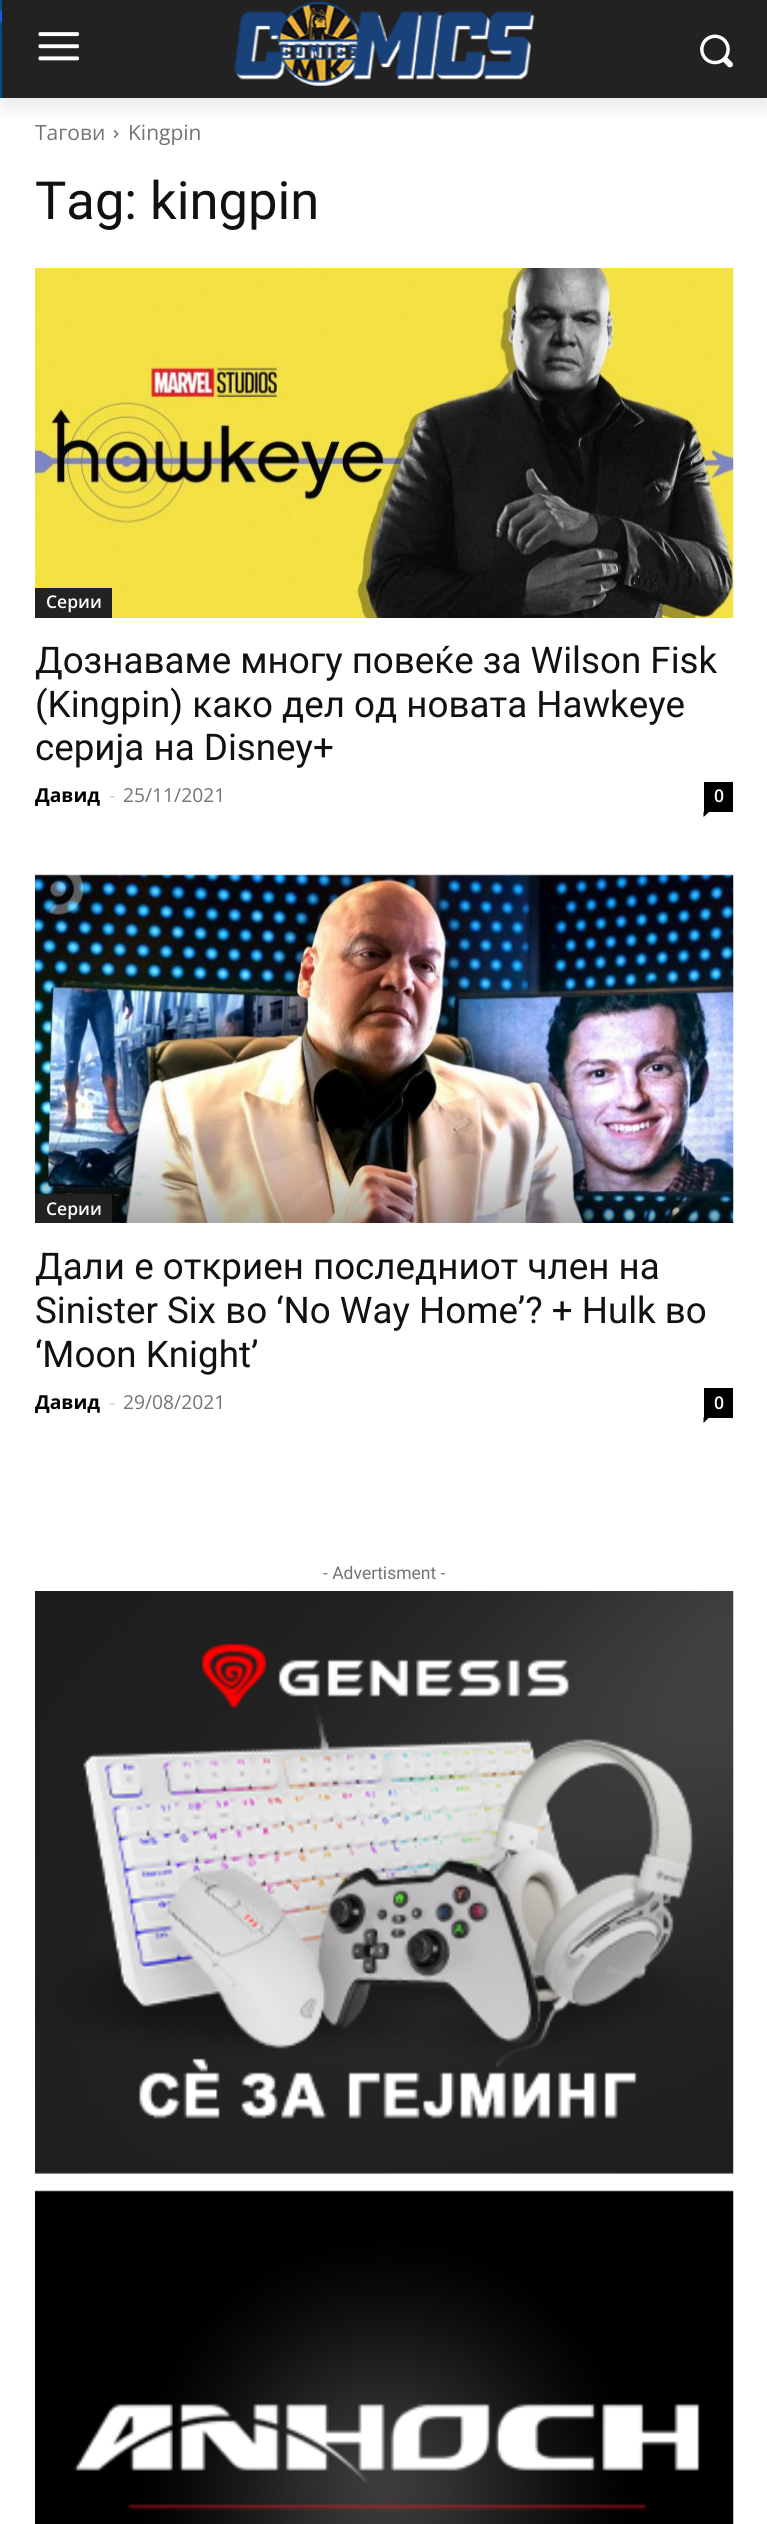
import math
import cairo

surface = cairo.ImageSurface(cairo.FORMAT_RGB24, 767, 2524)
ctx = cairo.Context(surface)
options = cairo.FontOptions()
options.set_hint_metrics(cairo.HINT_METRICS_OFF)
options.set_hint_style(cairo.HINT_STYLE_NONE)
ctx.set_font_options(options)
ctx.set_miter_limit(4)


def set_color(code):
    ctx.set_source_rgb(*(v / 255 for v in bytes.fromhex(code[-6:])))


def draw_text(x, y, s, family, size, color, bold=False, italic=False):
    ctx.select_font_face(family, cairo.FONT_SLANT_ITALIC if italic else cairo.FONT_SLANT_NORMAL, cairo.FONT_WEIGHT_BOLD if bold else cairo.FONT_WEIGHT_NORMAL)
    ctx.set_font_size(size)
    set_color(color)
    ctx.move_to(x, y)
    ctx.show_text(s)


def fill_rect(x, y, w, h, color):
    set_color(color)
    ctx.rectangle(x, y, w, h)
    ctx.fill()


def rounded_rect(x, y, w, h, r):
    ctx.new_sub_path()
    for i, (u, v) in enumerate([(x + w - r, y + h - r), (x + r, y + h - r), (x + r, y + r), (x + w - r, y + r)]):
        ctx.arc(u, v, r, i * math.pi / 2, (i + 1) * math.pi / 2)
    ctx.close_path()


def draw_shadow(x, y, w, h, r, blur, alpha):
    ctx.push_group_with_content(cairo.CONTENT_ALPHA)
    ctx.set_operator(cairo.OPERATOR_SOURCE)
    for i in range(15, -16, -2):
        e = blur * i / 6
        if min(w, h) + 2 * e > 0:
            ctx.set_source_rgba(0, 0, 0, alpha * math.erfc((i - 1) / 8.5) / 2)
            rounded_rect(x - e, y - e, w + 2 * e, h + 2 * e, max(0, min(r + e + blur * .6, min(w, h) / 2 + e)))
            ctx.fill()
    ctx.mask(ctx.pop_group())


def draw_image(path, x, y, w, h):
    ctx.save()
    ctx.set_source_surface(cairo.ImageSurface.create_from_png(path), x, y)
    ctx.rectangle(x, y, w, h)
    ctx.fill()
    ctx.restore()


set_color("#ffffff")
ctx.paint()
draw_image("assets/img1.png", 0, 0, 2, 98)
fill_rect(2, 0, 765, 98, "#222222")
draw_image("assets/img2.png", 38, 32, 41, 29)
draw_image("assets/img3.png", 233, 1, 302, 85)
draw_image("assets/img4.png", 700, 34, 33, 34)
draw_image("assets/img5.png", 113, 130, 6, 8)
ctx.save()
ctx.set_fill_rule(cairo.FILL_RULE_EVEN_ODD)
ctx.new_path()
ctx.move_to(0, 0)
ctx.line_to(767, 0)
ctx.line_to(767, 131)
ctx.line_to(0, 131)
ctx.close_path()
ctx.move_to(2, 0)
ctx.line_to(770, 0)
ctx.line_to(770, 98)
ctx.line_to(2, 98)
ctx.close_path()
ctx.clip()
set_color("#000000")
draw_shadow(2, 11, 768, 98, 0, 7, 0.08)
ctx.restore()
draw_text(35, 140, "Тагови", "Open Sans", 21, "#747474")
draw_text(128, 140, "Kingpin", "Open Sans", 21, "#747474")
draw_text(35, 219, "Tag: kingpin", "Roboto", 52.5, "#111111")
draw_image("assets/img6.png", 35, 268, 699, 350)
fill_rect(35, 588, 77, 30, "#222222")
draw_text(46, 608, "Серии", "Open Sans SemiBold", 17.5, "#ffffff")
draw_text(35, 673, "Дознаваме многу повеќе за Wilson Fisk", "Roboto", 36.75, "#111111")
draw_text(35, 717, "(Kingpin) како дел од новата Hawkeye", "Roboto", 36.75, "#111111")
draw_text(35, 760, "серија на Disney+", "Roboto", 36.75, "#111111")
draw_text(35, 802, "Давид", "Open Sans", 19.25, "#000000", bold=True)
draw_text(109, 802, "-", "Open Sans", 19.25, "#cccccc")
draw_text(123, 802, "25/11/2021", "Open Sans", 19.25, "#747474")
fill_rect(704, 782, 29, 30, "#000000")
draw_text(714, 802, "0", "Open Sans SemiBold", 17.5, "#ffffff")
set_color("#000000")
ctx.new_path()
ctx.move_to(703.5, 812)
ctx.line_to(709, 812)
ctx.line_to(703.5, 817)
ctx.close_path()
ctx.fill()
draw_image("assets/img7.png", 35, 874, 699, 349)
fill_rect(35, 1194, 77, 29, "#222222")
draw_text(46, 1215, "Серии", "Open Sans SemiBold", 17.5, "#ffffff")
draw_text(35, 1279, "Дали е откриен последниот член на", "Roboto", 36.75, "#111111")
draw_text(35, 1323, "Sinister Six во ‘No Way Home’? + Hulk во", "Roboto", 36.75, "#111111")
draw_text(35, 1367, "‘Moon Knight’", "Roboto", 36.75, "#111111")
draw_text(35, 1409, "Давид", "Open Sans", 19.25, "#000000", bold=True)
draw_text(109, 1409, "-", "Open Sans", 19.25, "#cccccc")
draw_text(123, 1409, "29/08/2021", "Open Sans", 19.25, "#747474")
fill_rect(704, 1388, 29, 30, "#000000")
draw_text(714, 1409, "0", "Open Sans SemiBold", 17.5, "#ffffff")
set_color("#000000")
ctx.new_path()
ctx.move_to(703.5, 1417.5)
ctx.line_to(709, 1417.5)
ctx.line_to(703.5, 1423)
ctx.close_path()
ctx.fill()
draw_text(323, 1579, "- Advertisment -", "Roboto", 17.5, "#747474")
draw_image("assets/img8.png", 35, 1591, 699, 583)
draw_image("assets/img9.png", 35, 2190, 699, 334)
surface.write_to_png("output.png")
